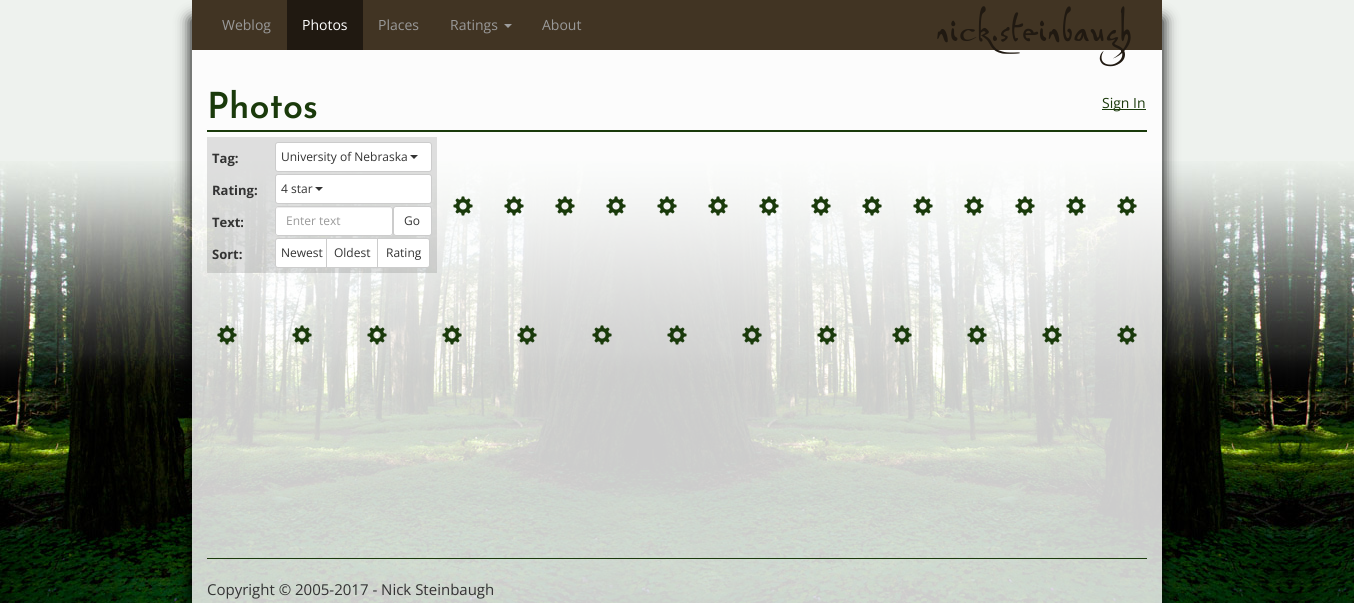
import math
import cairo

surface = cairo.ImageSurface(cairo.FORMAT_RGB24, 1354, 603)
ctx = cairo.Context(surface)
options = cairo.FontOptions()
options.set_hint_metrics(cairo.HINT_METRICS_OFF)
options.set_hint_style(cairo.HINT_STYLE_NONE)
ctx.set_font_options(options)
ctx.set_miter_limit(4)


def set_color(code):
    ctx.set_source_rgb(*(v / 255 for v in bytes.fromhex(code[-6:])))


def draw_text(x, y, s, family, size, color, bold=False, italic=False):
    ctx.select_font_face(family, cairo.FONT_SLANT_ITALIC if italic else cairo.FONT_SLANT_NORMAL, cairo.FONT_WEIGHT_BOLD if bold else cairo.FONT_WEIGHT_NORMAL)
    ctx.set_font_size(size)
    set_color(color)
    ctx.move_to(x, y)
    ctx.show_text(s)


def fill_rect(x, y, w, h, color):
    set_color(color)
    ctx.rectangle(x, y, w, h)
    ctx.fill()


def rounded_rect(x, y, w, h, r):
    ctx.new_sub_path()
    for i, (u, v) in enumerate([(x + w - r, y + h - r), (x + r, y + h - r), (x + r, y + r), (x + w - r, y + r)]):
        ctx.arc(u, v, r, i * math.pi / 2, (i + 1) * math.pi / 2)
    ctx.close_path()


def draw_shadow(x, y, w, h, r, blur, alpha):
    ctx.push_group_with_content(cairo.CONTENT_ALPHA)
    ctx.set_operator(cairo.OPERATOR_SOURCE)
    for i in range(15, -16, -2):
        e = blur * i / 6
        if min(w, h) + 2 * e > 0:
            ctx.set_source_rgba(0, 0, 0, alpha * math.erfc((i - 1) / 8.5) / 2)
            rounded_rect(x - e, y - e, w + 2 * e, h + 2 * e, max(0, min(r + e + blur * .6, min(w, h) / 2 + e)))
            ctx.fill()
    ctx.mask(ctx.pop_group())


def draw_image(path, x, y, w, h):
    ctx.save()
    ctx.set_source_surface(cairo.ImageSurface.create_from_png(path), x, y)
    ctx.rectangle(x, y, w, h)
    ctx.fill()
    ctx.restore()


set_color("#eef2ee")
ctx.paint()
draw_image("assets/img1.png", 0, 161, 1354, 442)
ctx.save()
ctx.set_fill_rule(cairo.FILL_RULE_EVEN_ODD)
ctx.new_path()
ctx.move_to(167, 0)
ctx.line_to(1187, 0)
ctx.line_to(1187, 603)
ctx.line_to(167, 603)
ctx.close_path()
ctx.move_to(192, 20)
ctx.line_to(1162, 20)
ctx.line_to(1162, 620)
ctx.line_to(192, 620)
ctx.close_path()
ctx.clip()
set_color("#000000")
draw_shadow(191, 19, 972, 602, 0, 7.5, 1)
ctx.restore()
fill_rect(192, 0, 970, 50, "#413423")
draw_text(222, 30, "Weblog", "Open Sans", 14, "#999999")
fill_rect(287, 0, 76, 50, "#201911")
draw_text(302, 30, "Photos", "Open Sans", 14, "#ffffff")
draw_text(378, 30, "Places", "Open Sans", 14, "#999999")
draw_text(450, 30, "Ratings", "Open Sans", 14, "#999999")
set_color("#9d9d9d")
ctx.new_path()
ctx.move_to(504, 24)
ctx.line_to(512, 24)
ctx.line_to(508, 28)
ctx.close_path()
ctx.fill()
draw_text(542, 30, "About", "Open Sans", 14, "#999999")
ctx.set_source_rgba(1, 1, 1, 0.8)
ctx.rectangle(192, 50, 970, 553)
ctx.fill()
draw_text(936, 41, "nick.steinbaugh", "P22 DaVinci", 58, "#201911")
fill_rect(207, 130, 940, 2, "#1a3a0b")
draw_text(207, 118, "Photos", "Josefin Sans SemiBold", 36, "#1a3a0b")
ctx.set_source_rgba(0, 0, 0, 0.12)
ctx.rectangle(207, 137, 230, 136)
ctx.fill()
draw_text(212, 163, "Tag:", "Open Sans", 13, "#333333", bold=True)
set_color("#ffffff")
rounded_rect(275.5, 142.5, 156, 29, 2.5)
ctx.fill_preserve()
set_color("#cccccc")
ctx.set_line_width(1)
ctx.stroke()
draw_text(281, 161, "University of Nebraska", "Open Sans", 12, "#333333")
ctx.new_path()
ctx.move_to(410, 155)
ctx.line_to(418, 155)
ctx.line_to(414, 159)
ctx.close_path()
ctx.fill()
draw_text(212, 195, "Rating:", "Open Sans", 13, "#333333", bold=True)
set_color("#ffffff")
rounded_rect(275.5, 174.5, 156, 29, 2.5)
ctx.fill_preserve()
set_color("#cccccc")
ctx.stroke()
draw_text(281, 193, "4 star", "Open Sans", 12, "#333333")
ctx.new_path()
ctx.move_to(315, 187)
ctx.line_to(323, 187)
ctx.line_to(319, 191)
ctx.close_path()
ctx.fill()
draw_text(212, 227, "Text:", "Open Sans", 13, "#333333", bold=True)
set_color("#ffffff")
rounded_rect(275, 206, 118, 30, 3)
ctx.fill()
set_color("#ececec")
ctx.new_path()
ctx.move_to(278, 208)
ctx.line_to(390, 208)
ctx.curve_to(391, 208, 392, 209, 392, 210)
ctx.curve_to(392, 209, 392, 207, 390, 207)
ctx.line_to(278, 207)
ctx.curve_to(276, 207, 276, 209, 276, 210)
ctx.curve_to(276, 209, 277, 208, 278, 208)
ctx.close_path()
ctx.fill()
rounded_rect(275.5, 206.5, 117, 29, 2.5)
set_color("#cccccc")
ctx.stroke()
draw_text(286, 225, "Enter text", "Open Sans", 12, "#999999")
set_color("#ffffff")
rounded_rect(393.5, 206.5, 38, 29, 2.5)
ctx.fill_preserve()
set_color("#cccccc")
ctx.stroke()
draw_text(404, 225, "Go", "Open Sans", 12, "#333333")
draw_text(212, 259, "Sort:", "Open Sans", 13, "#333333", bold=True)
set_color("#ffffff")
ctx.new_path()
ctx.move_to(278, 238.5)
ctx.line_to(326.5, 238.5)
ctx.line_to(326.5, 267.5)
ctx.line_to(278, 267.5)
ctx.curve_to(276.5, 267.5, 275.5, 266.5, 275.5, 265)
ctx.line_to(275.5, 241)
ctx.curve_to(275.5, 239.5, 276.5, 238.5, 278, 238.5)
ctx.close_path()
ctx.fill_preserve()
set_color("#cccccc")
ctx.stroke()
draw_text(281, 257, "Newest", "Open Sans", 12, "#333333")
set_color("#ffffff")
ctx.rectangle(326.5, 238.5, 51, 29)
ctx.fill_preserve()
set_color("#cccccc")
ctx.stroke()
draw_text(334, 257, "Oldest", "Open Sans", 12, "#333333")
set_color("#ffffff")
ctx.new_path()
ctx.move_to(377.5, 238.5)
ctx.line_to(427, 238.5)
ctx.curve_to(428.5, 238.5, 429.5, 239.5, 429.5, 241)
ctx.line_to(429.5, 265)
ctx.curve_to(429.5, 266.5, 428.5, 267.5, 427, 267.5)
ctx.line_to(377.5, 267.5)
ctx.close_path()
ctx.fill_preserve()
set_color("#cccccc")
ctx.stroke()
draw_text(386, 257, "Rating", "Open Sans", 12, "#333333")
draw_image("assets/img2.png", 453, 196, 20, 20)
draw_image("assets/img3.png", 504, 196, 20, 20)
draw_image("assets/img4.png", 555, 196, 20, 20)
draw_image("assets/img5.png", 606, 196, 20, 20)
draw_image("assets/img6.png", 657, 196, 20, 20)
draw_image("assets/img7.png", 708, 196, 20, 20)
draw_image("assets/img8.png", 759, 196, 20, 20)
draw_image("assets/img9.png", 811, 196, 20, 20)
draw_image("assets/img10.png", 862, 196, 20, 20)
draw_image("assets/img11.png", 913, 196, 20, 20)
draw_image("assets/img12.png", 964, 196, 20, 20)
draw_image("assets/img13.png", 1015, 196, 20, 20)
draw_image("assets/img14.png", 1066, 196, 20, 20)
draw_image("assets/img15.png", 1117, 196, 20, 20)
draw_image("assets/img16.png", 217, 325, 20, 20)
draw_image("assets/img17.png", 292, 325, 20, 20)
draw_image("assets/img18.png", 367, 325, 20, 20)
draw_image("assets/img19.png", 442, 325, 20, 20)
draw_image("assets/img20.png", 517, 325, 20, 20)
draw_image("assets/img21.png", 592, 325, 20, 20)
draw_image("assets/img22.png", 667, 325, 20, 20)
draw_image("assets/img23.png", 742, 325, 20, 20)
draw_image("assets/img24.png", 817, 325, 20, 20)
draw_image("assets/img25.png", 892, 325, 20, 20)
draw_image("assets/img26.png", 967, 325, 20, 20)
draw_image("assets/img27.png", 1042, 325, 20, 20)
draw_image("assets/img28.png", 1117, 325, 20, 20)
fill_rect(1102, 109, 44, 1, "#1a3a0b")
draw_text(1102, 108, "Sign In", "Open Sans", 14, "#1a3a0b")
fill_rect(207, 558, 940, 1, "#1a3a0b")
draw_text(207, 595, "Copyright © 2005-2017 - Nick Steinbaugh", "Open Sans", 15, "#333333")
surface.write_to_png("output.png")
